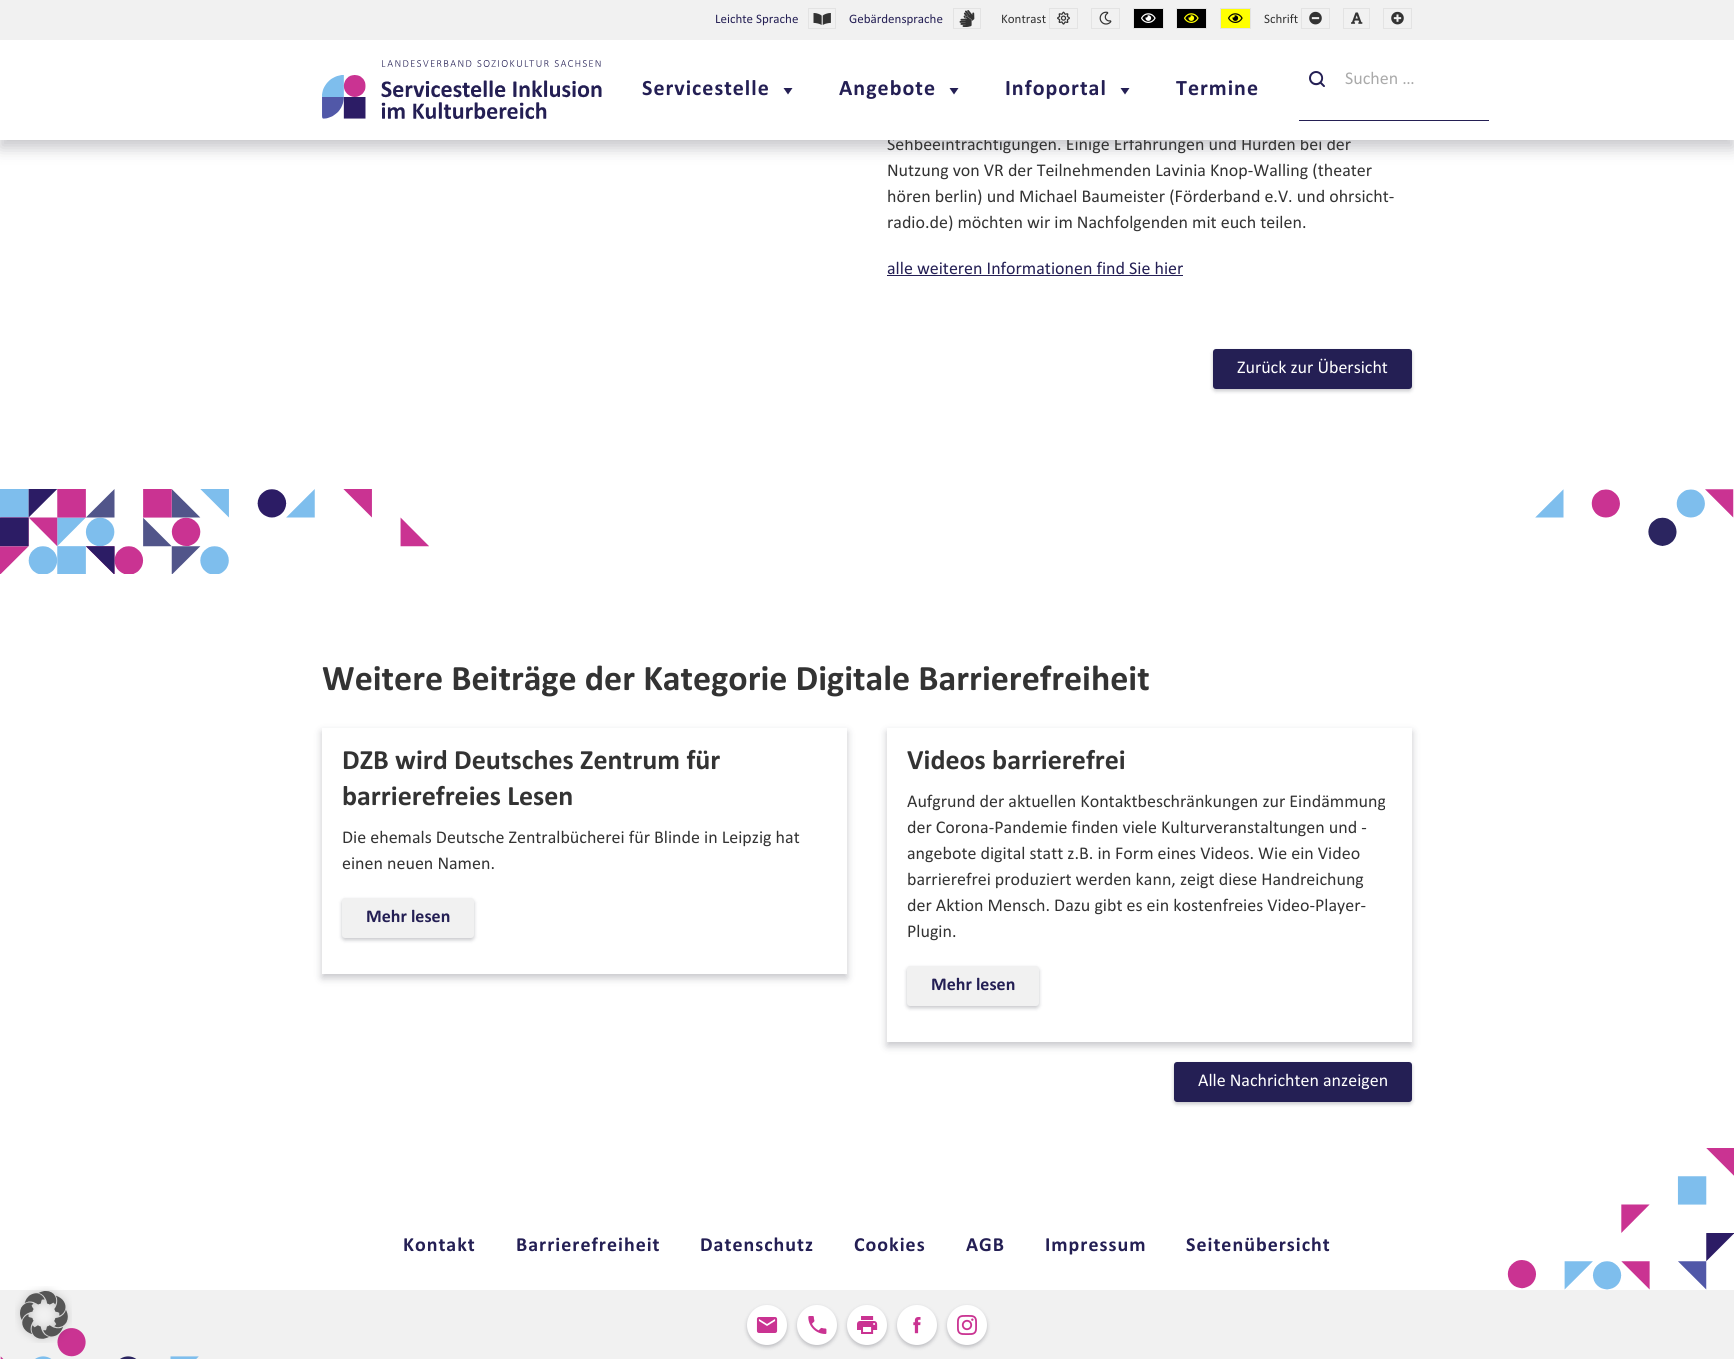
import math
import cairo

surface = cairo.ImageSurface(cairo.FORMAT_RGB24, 1734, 1359)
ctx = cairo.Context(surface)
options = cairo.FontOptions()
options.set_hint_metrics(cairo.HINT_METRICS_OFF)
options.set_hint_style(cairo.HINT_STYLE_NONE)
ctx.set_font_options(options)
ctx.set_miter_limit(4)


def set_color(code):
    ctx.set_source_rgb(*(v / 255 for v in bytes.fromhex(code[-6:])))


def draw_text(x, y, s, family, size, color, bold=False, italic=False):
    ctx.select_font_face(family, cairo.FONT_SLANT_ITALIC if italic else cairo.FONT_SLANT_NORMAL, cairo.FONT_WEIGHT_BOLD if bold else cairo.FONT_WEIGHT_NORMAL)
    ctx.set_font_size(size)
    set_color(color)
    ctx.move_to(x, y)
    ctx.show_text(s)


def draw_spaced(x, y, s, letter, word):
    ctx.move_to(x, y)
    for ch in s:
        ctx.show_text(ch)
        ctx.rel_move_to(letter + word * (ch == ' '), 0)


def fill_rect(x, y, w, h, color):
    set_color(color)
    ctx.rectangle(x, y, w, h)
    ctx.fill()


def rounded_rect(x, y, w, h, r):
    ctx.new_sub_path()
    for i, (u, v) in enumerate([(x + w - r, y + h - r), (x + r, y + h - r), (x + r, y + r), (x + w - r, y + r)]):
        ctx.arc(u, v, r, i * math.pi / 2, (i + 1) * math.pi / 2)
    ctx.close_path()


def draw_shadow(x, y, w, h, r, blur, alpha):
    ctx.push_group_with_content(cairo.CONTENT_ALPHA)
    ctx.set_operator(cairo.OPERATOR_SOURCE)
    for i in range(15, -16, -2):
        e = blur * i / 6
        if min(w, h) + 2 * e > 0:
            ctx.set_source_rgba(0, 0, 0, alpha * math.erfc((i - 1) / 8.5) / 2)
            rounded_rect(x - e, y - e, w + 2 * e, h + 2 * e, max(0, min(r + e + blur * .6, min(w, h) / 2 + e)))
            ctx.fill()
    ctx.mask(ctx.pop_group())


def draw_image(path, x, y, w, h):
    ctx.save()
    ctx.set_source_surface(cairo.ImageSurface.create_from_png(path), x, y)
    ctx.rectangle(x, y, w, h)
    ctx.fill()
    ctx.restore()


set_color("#ffffff")
ctx.paint()
set_color("#0f1020")
draw_shadow(0, 8, 1734, 140, 0, 8, 0.24)
fill_rect(0, 0, 1734, 40, "#f1f1f1")
draw_text(715, 23, "Leichte Sprache", "Calibri", 13, "#241f54")
ctx.rectangle(808.5, 8.5, 27, 20)
set_color("#e3e3e3")
ctx.set_line_width(1)
ctx.stroke()
draw_image("assets/img1.png", 813, 13, 18, 12)
draw_text(849, 23, "Gebärdensprache", "Calibri", 13, "#241f54")
ctx.rectangle(953.5, 8.5, 27, 20)
set_color("#e3e3e3")
ctx.stroke()
draw_image("assets/img2.png", 959, 10, 16, 17)
draw_text(1001, 23, "Kontrast", "Calibri", 13, "#333333")
ctx.rectangle(1049.5, 8.5, 28, 20)
set_color("#e3e3e3")
ctx.stroke()
draw_image("assets/img3.png", 1057, 11, 13, 14)
ctx.rectangle(1091.5, 8.5, 28, 20)
ctx.stroke()
draw_image("assets/img4.png", 1099, 11, 13, 14)
set_color("#000000")
ctx.rectangle(1133.5, 8.5, 30, 20)
ctx.fill_preserve()
set_color("#e3e3e3")
ctx.stroke()
draw_image("assets/img5.png", 1141, 13, 15, 10)
set_color("#000000")
ctx.rectangle(1176.5, 8.5, 30, 20)
ctx.fill_preserve()
set_color("#e3e3e3")
ctx.stroke()
draw_image("assets/img6.png", 1184, 13, 15, 10)
set_color("#ffff00")
ctx.rectangle(1220.5, 8.5, 30, 20)
ctx.fill_preserve()
set_color("#e3e3e3")
ctx.stroke()
draw_image("assets/img7.png", 1228, 13, 15, 10)
draw_text(1264, 23, "Schrift", "Calibri", 13, "#333333")
ctx.rectangle(1301.5, 8.5, 28, 20)
set_color("#e3e3e3")
ctx.stroke()
draw_image("assets/img8.png", 1309, 11, 13, 14)
ctx.rectangle(1343.5, 8.5, 26, 20)
ctx.stroke()
draw_image("assets/img9.png", 1351, 12, 12, 12)
ctx.rectangle(1383.5, 8.5, 28, 20)
ctx.stroke()
draw_image("assets/img10.png", 1391, 11, 13, 14)
draw_text(887, 150, "Sehbeeinträchtigungen. Einige Erfahrungen und Hürden bei der", "Calibri", 18, "#333333")
fill_rect(0, 40, 1734, 100, "#ffffff")
draw_image("assets/img11.png", 322, 60, 280, 59)
ctx.select_font_face("Calibri", cairo.FONT_SLANT_NORMAL, cairo.FONT_WEIGHT_BOLD)
ctx.set_font_size(22)
set_color("#241f54")
draw_spaced(642, 95, "Servicestelle", 1, 0)
ctx.new_path()
ctx.move_to(792.5, 88)
ctx.line_to(788, 94.5)
ctx.line_to(783.5, 88)
ctx.close_path()
ctx.fill()
draw_spaced(839, 95, "Angebote", 1, 0)
ctx.new_path()
ctx.move_to(958.5, 88)
ctx.line_to(954, 94.5)
ctx.line_to(949.5, 88)
ctx.close_path()
ctx.fill()
draw_spaced(1005, 95, "Infoportal", 1, 0)
ctx.new_path()
ctx.move_to(1129.5, 88)
ctx.line_to(1125, 94.5)
ctx.line_to(1120.5, 88)
ctx.close_path()
ctx.fill()
draw_spaced(1176, 95, "Termine", 1, 0)
fill_rect(1299, 120, 190, 1, "#241f54")
draw_image("assets/img12.png", 1309, 71, 16, 16)
draw_text(1345, 84, "Suchen …", "Calibri", 18, "#aaaaaa")
draw_text(887, 176, "Nutzung von VR der Teilnehmenden Lavinia Knop-Walling (theater", "Calibri", 18, "#333333")
draw_text(887, 202, "hören berlin) und Michael Baumeister (Förderband e.V. und ohrsicht-", "Calibri", 18, "#333333")
draw_text(887, 228, "radio.de) möchten wir im Nachfolgenden mit euch teilen.", "Calibri", 18, "#333333")
draw_text(887, 274, "alle weiteren Informationen find Sie hier", "Calibri", 18, "#241f54")
fill_rect(887, 275, 296, 1, "#241f54")
set_color("#0f1020")
draw_shadow(1213, 351, 199, 40, 3, 2, 0.24)
set_color("#241f54")
rounded_rect(1213, 349, 199, 40, 3)
ctx.fill()
draw_text(1237, 373, "Zurück zur Übersicht", "Calibri", 18, "#ffffff")
draw_image("assets/img13.png", 0, 489, 429, 85)
draw_image("assets/img14.png", 1535, 489, 199, 57)
draw_text(322, 690, "Weitere Beiträge der Kategorie Digitale Barrierefreiheit", "Calibri", 36, "#333333", bold=True)
ctx.save()
ctx.set_fill_rule(cairo.FILL_RULE_EVEN_ODD)
ctx.new_path()
ctx.move_to(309, 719)
ctx.line_to(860, 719)
ctx.line_to(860, 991)
ctx.line_to(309, 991)
ctx.close_path()
ctx.move_to(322, 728)
ctx.line_to(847, 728)
ctx.line_to(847, 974)
ctx.line_to(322, 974)
ctx.close_path()
ctx.clip()
set_color("#0f1020")
draw_shadow(322, 732, 525, 246, 0, 4, 0.24)
ctx.restore()
draw_text(342, 769, "DZB wird Deutsches Zentrum für", "Calibri", 28, "#333333", bold=True)
draw_text(342, 805, "barrierefreies Lesen", "Calibri", 28, "#333333", bold=True)
draw_text(342, 843, "Die ehemals Deutsche Zentralbücherei für Blinde in Leipzig hat", "Calibri", 18, "#333333")
draw_text(342, 869, "einen neuen Namen.", "Calibri", 18, "#333333")
set_color("#0f1020")
draw_shadow(342, 900, 132, 40, 3, 2, 0.24)
set_color("#f1f1f1")
rounded_rect(342, 898, 132, 40, 3)
ctx.fill()
draw_text(366, 922, "Mehr lesen", "Calibri", 18, "#241f54", bold=True)
ctx.save()
ctx.set_fill_rule(cairo.FILL_RULE_EVEN_ODD)
ctx.new_path()
ctx.move_to(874, 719)
ctx.line_to(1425, 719)
ctx.line_to(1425, 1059)
ctx.line_to(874, 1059)
ctx.close_path()
ctx.move_to(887, 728)
ctx.line_to(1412, 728)
ctx.line_to(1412, 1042)
ctx.line_to(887, 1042)
ctx.close_path()
ctx.clip()
set_color("#0f1020")
draw_shadow(887, 732, 525, 314, 0, 4, 0.24)
ctx.restore()
draw_text(907, 769, "Videos barrierefrei", "Calibri", 28, "#333333", bold=True)
draw_text(907, 807, "Aufgrund der aktuellen Kontaktbeschränkungen zur Eindämmung", "Calibri", 18, "#333333")
draw_text(907, 833, "der Corona-Pandemie finden viele Kulturveranstaltungen und -", "Calibri", 18, "#333333")
draw_text(907, 859, "angebote digital statt z.B. in Form eines Videos. Wie ein Video", "Calibri", 18, "#333333")
draw_text(907, 885, "barrierefrei produziert werden kann, zeigt diese Handreichung", "Calibri", 18, "#333333")
draw_text(907, 911, "der Aktion Mensch. Dazu gibt es ein kostenfreies Video-Player-", "Calibri", 18, "#333333")
draw_text(907, 937, "Plugin.", "Calibri", 18, "#333333")
set_color("#0f1020")
draw_shadow(907, 968, 132, 40, 3, 2, 0.24)
set_color("#f1f1f1")
rounded_rect(907, 966, 132, 40, 3)
ctx.fill()
draw_text(931, 990, "Mehr lesen", "Calibri", 18, "#241f54", bold=True)
set_color("#0f1020")
draw_shadow(1174, 1064, 238, 40, 3, 2, 0.24)
set_color("#241f54")
rounded_rect(1174, 1062, 238, 40, 3)
ctx.fill()
draw_text(1198, 1086, "Alle Nachrichten anzeigen", "Calibri", 18, "#ffffff")
ctx.select_font_face("Calibri", cairo.FONT_SLANT_NORMAL, cairo.FONT_WEIGHT_BOLD)
ctx.set_font_size(20)
set_color("#241f54")
draw_spaced(403, 1251, "Kontakt", 1, 0)
draw_spaced(516, 1251, "Barrierefreiheit", 1, 0)
draw_spaced(700, 1251, "Datenschutz", 1, 0)
draw_spaced(854, 1251, "Cookies", 1, 0)
draw_spaced(966, 1251, "AGB", 1, 0)
draw_spaced(1045, 1251, "Impressum", 1, 0)
draw_spaced(1186, 1251, "Seitenübersicht", 1, 0)
draw_image("assets/img15.png", 1507, 1148, 227, 142)
fill_rect(0, 1290, 1734, 69, "#f1f1f1")
draw_image("assets/img16.png", 0, 1328, 199, 31)
set_color("#0f1020")
draw_shadow(747, 1307, 40, 40, 20, 2, 0.24)
set_color("#ffffff")
ctx.arc(767, 1325, 20, 0, 2 * math.pi)
ctx.fill()
draw_image("assets/img17.png", 756, 1317, 22, 16)
set_color("#0f1020")
draw_shadow(797, 1307, 40, 40, 20, 2, 0.24)
set_color("#ffffff")
ctx.arc(817, 1325, 20, 0, 2 * math.pi)
ctx.fill()
draw_image("assets/img18.png", 808, 1316, 19, 18)
set_color("#0f1020")
draw_shadow(847, 1307, 40, 40, 20, 2, 0.24)
set_color("#ffffff")
ctx.arc(867, 1325, 20, 0, 2 * math.pi)
ctx.fill()
draw_image("assets/img19.png", 857, 1316, 21, 18)
set_color("#0f1020")
draw_shadow(897, 1307, 40, 40, 20, 2, 0.24)
set_color("#ffffff")
ctx.arc(917, 1325, 20, 0, 2 * math.pi)
ctx.fill()
draw_image("assets/img20.png", 913, 1317, 8, 17)
set_color("#0f1020")
draw_shadow(947, 1307, 40, 40, 20, 2, 0.24)
set_color("#ffffff")
ctx.arc(967, 1325, 20, 0, 2 * math.pi)
ctx.fill()
draw_image("assets/img21.png", 957, 1315, 20, 20)
draw_image("assets/img22.png", 15, 1286, 57, 57)
surface.write_to_png("output.png")
